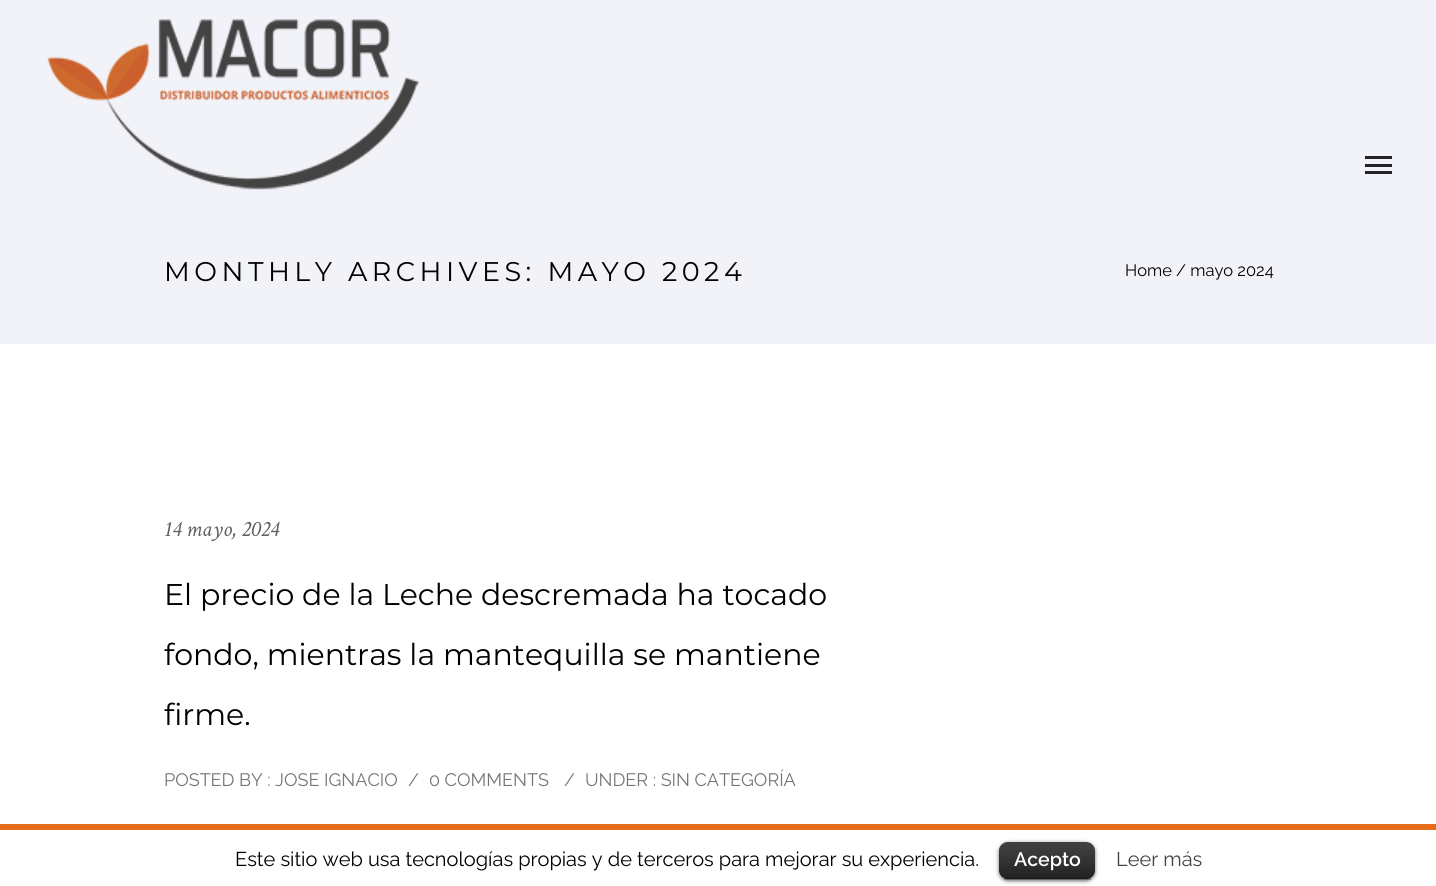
import math
import cairo

surface = cairo.ImageSurface(cairo.FORMAT_RGB24, 1436, 886)
ctx = cairo.Context(surface)
options = cairo.FontOptions()
options.set_hint_metrics(cairo.HINT_METRICS_OFF)
options.set_hint_style(cairo.HINT_STYLE_NONE)
ctx.set_font_options(options)
ctx.set_miter_limit(4)


def set_color(code):
    ctx.set_source_rgb(*(v / 255 for v in bytes.fromhex(code[-6:])))


def draw_text(x, y, s, family, size, color, bold=False, italic=False):
    ctx.select_font_face(family, cairo.FONT_SLANT_ITALIC if italic else cairo.FONT_SLANT_NORMAL, cairo.FONT_WEIGHT_BOLD if bold else cairo.FONT_WEIGHT_NORMAL)
    ctx.set_font_size(size)
    set_color(color)
    ctx.move_to(x, y)
    ctx.show_text(s)


def draw_spaced(x, y, s, letter, word):
    ctx.move_to(x, y)
    for ch in s:
        ctx.show_text(ch)
        ctx.rel_move_to(letter + word * (ch == ' '), 0)


def fill_rect(x, y, w, h, color):
    set_color(color)
    ctx.rectangle(x, y, w, h)
    ctx.fill()


def rounded_rect(x, y, w, h, r):
    ctx.new_sub_path()
    for i, (u, v) in enumerate([(x + w - r, y + h - r), (x + r, y + h - r), (x + r, y + r), (x + w - r, y + r)]):
        ctx.arc(u, v, r, i * math.pi / 2, (i + 1) * math.pi / 2)
    ctx.close_path()


def draw_shadow(x, y, w, h, r, blur, alpha):
    ctx.push_group_with_content(cairo.CONTENT_ALPHA)
    ctx.set_operator(cairo.OPERATOR_SOURCE)
    for i in range(15, -16, -2):
        e = blur * i / 6
        if min(w, h) + 2 * e > 0:
            ctx.set_source_rgba(0, 0, 0, alpha * math.erfc((i - 1) / 8.5) / 2)
            rounded_rect(x - e, y - e, w + 2 * e, h + 2 * e, max(0, min(r + e + blur * .6, min(w, h) / 2 + e)))
            ctx.fill()
    ctx.mask(ctx.pop_group())


def draw_image(path, x, y, w, h):
    ctx.save()
    ctx.set_source_surface(cairo.ImageSurface.create_from_png(path), x, y)
    ctx.rectangle(x, y, w, h)
    ctx.fill()
    ctx.restore()


set_color("#ffffff")
ctx.paint()
fill_rect(0, 0, 1436, 344, "#f2f3f8")
draw_image("assets/img1.png", 47, 19, 372, 171)
fill_rect(1365, 164, 27, 3, "#232323")
fill_rect(1365, 156, 27, 3, "#232323")
fill_rect(1365, 171, 27, 3, "#232323")
ctx.select_font_face("Montserrat")
ctx.set_font_size(27)
set_color("#000000")
draw_spaced(164, 281, "MONTHLY ARCHIVES: MAYO 2024", 4.5, 0)
draw_text(1125, 276, "Home / mayo 2024", "Raleway", 16.5, "#000000")
draw_text(164, 536, "14 mayo, 2024", "Crimson Text", 22.5, "#5f6263", italic=True)
draw_text(164, 605, "El precio de la Leche descremada ha tocado", "Montserrat", 30, "#000000")
draw_text(164, 665, "fondo, mientras la mantequilla se mantiene", "Montserrat", 30, "#000000")
draw_text(164, 725, "firme.", "Montserrat", 30, "#000000")
draw_text(164, 786, "POSTED BY : JOSE IGNACIO", "Raleway", 18, "#757575")
draw_text(408, 786, "/", "Raleway", 18, "#757575")
draw_text(429, 786, "0 COMMENTS", "Raleway", 18, "#757575")
draw_text(564, 786, "/", "Raleway", 18, "#757575")
draw_text(585, 786, "UNDER : SIN CATEGORÍA", "Raleway", 18, "#757575")
fill_rect(0, 824, 1436, 6, "#e56c1b")
draw_text(235, 866, "Este sitio web usa tecnologías propias y de terceros para mejorar su experiencia.", "Raleway", 20, "#000000")
set_color("#000000")
draw_shadow(999, 843, 96, 38, 9, 2, 0.6)
set_color("#000000")
rounded_rect(999, 842, 96, 37, 9)
ctx.fill()
draw_image("assets/img2.png", 999, 842, 96, 37)
ctx.set_source_rgba(0, 0, 0, 0.25)
ctx.rectangle(1004, 878, 87, 2)
ctx.fill()
draw_text(1014, 866, "Acepto", "Raleway SemiBold", 19.5, "#ffffff")
draw_text(1116, 866, "Leer más", "Raleway", 20, "#444444")
surface.write_to_png("output.png")
